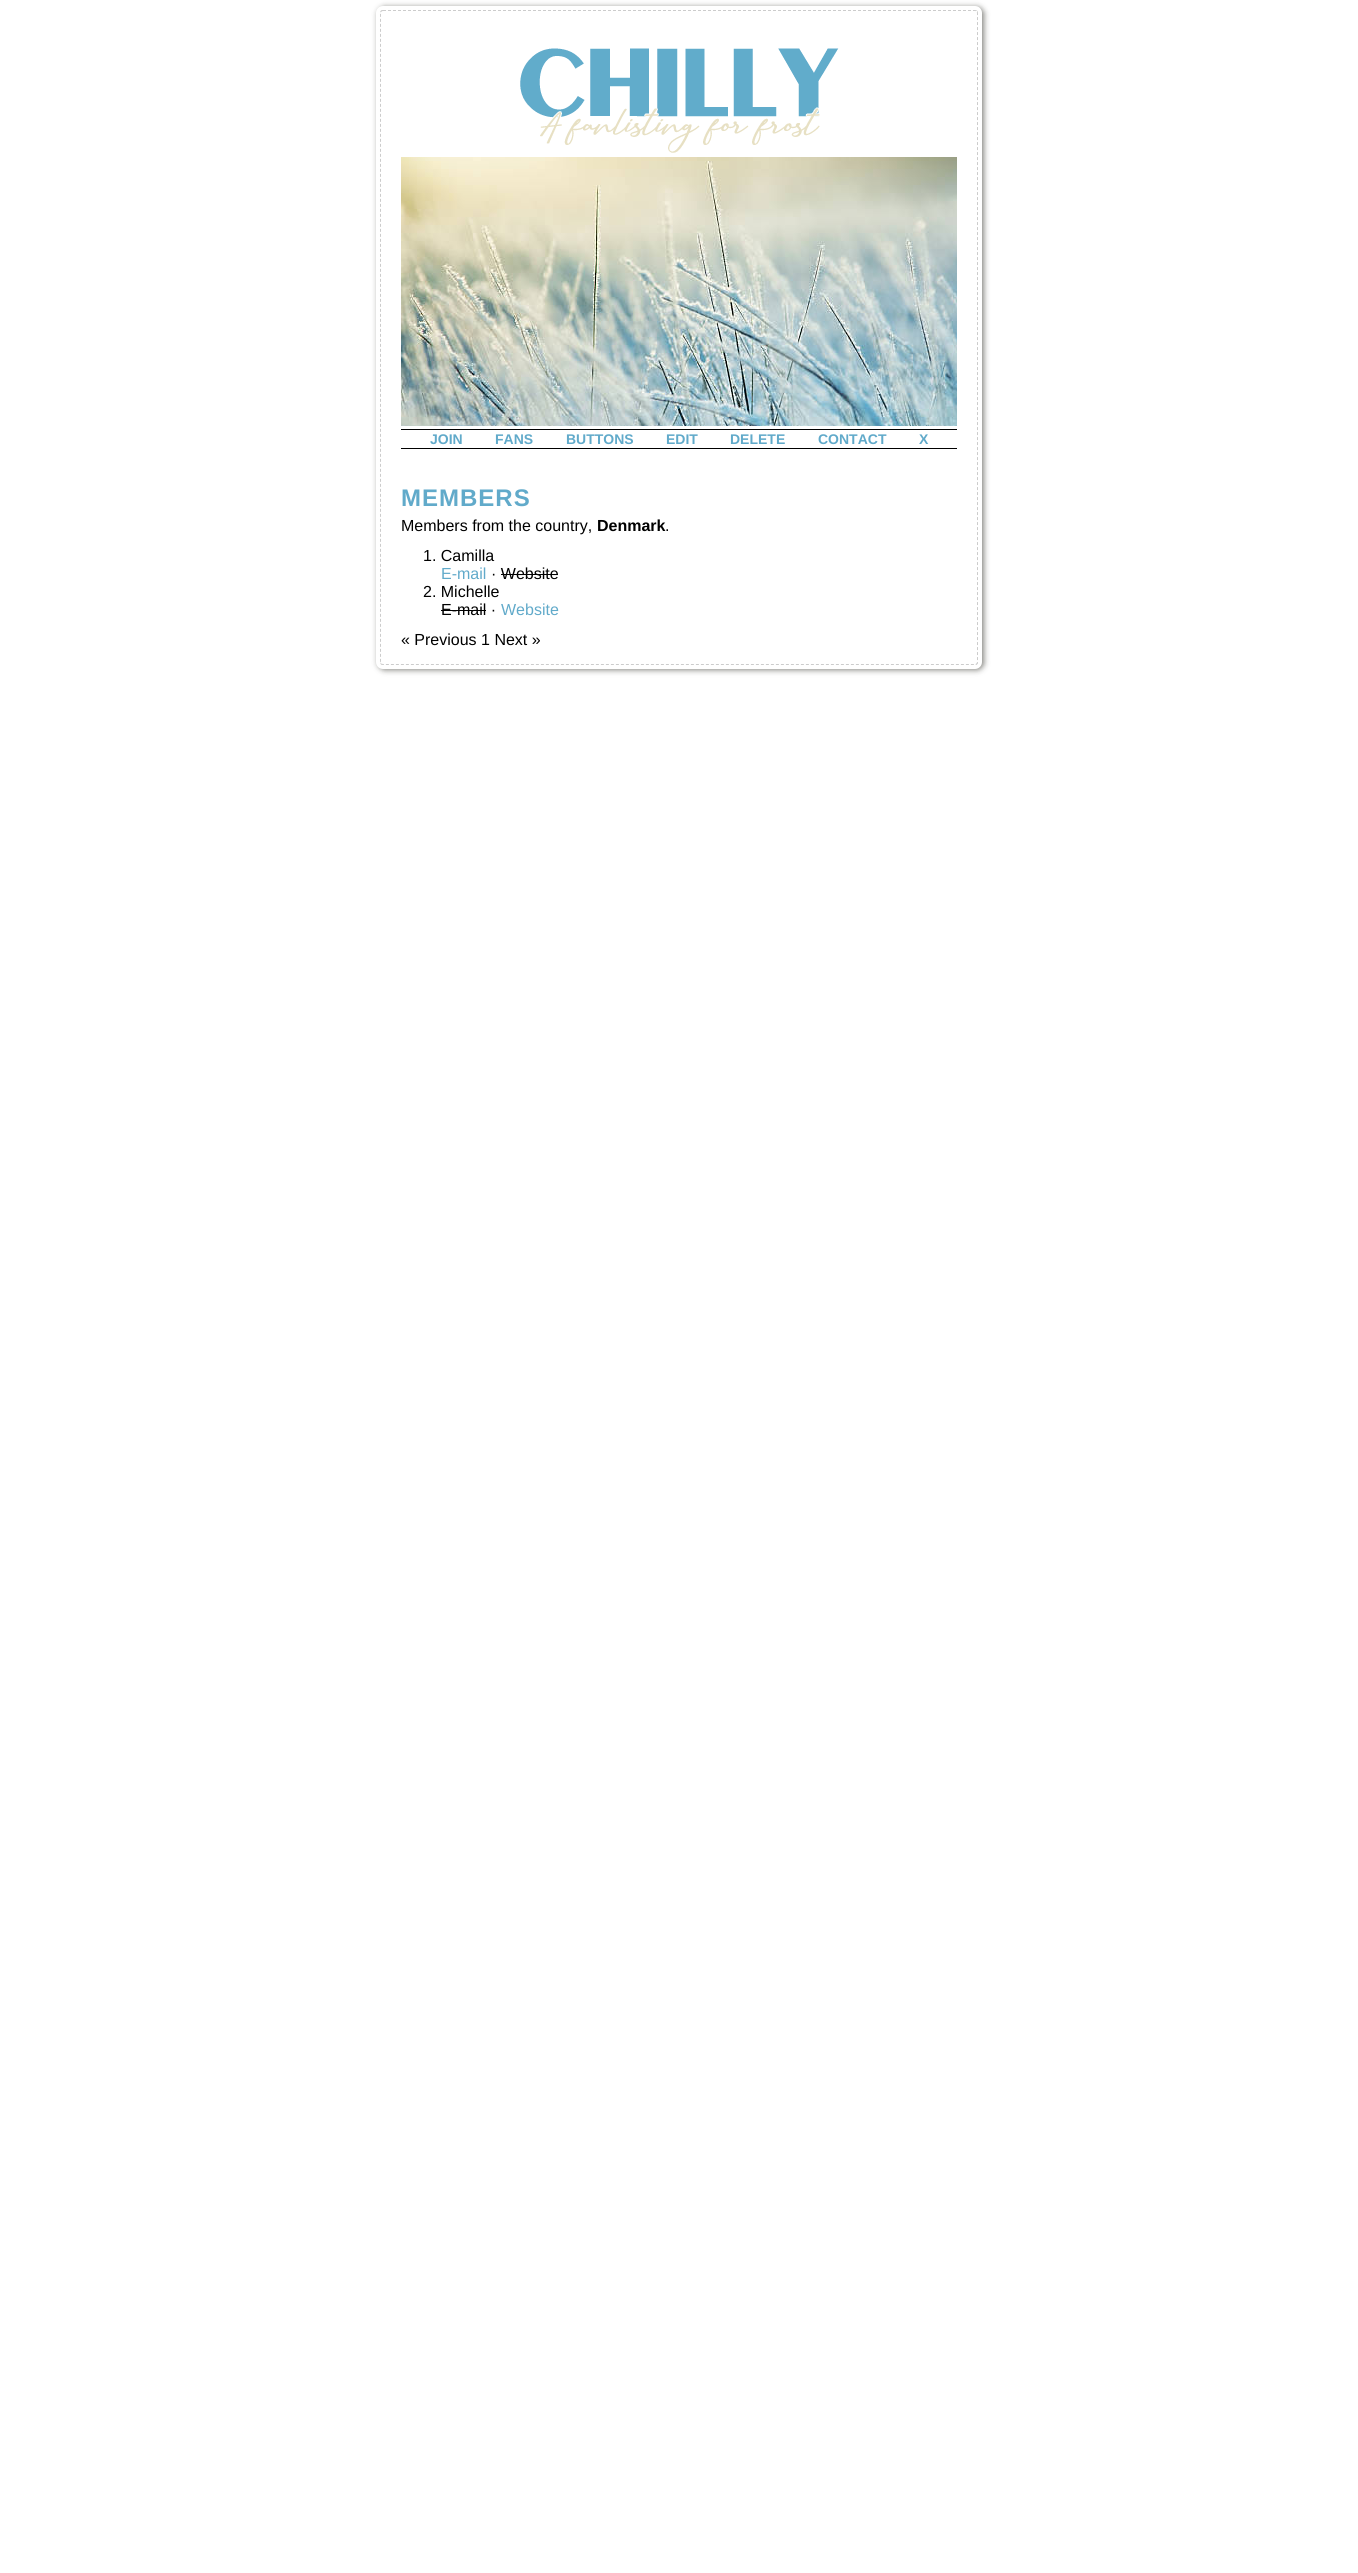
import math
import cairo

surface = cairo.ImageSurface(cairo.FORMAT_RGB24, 1358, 2573)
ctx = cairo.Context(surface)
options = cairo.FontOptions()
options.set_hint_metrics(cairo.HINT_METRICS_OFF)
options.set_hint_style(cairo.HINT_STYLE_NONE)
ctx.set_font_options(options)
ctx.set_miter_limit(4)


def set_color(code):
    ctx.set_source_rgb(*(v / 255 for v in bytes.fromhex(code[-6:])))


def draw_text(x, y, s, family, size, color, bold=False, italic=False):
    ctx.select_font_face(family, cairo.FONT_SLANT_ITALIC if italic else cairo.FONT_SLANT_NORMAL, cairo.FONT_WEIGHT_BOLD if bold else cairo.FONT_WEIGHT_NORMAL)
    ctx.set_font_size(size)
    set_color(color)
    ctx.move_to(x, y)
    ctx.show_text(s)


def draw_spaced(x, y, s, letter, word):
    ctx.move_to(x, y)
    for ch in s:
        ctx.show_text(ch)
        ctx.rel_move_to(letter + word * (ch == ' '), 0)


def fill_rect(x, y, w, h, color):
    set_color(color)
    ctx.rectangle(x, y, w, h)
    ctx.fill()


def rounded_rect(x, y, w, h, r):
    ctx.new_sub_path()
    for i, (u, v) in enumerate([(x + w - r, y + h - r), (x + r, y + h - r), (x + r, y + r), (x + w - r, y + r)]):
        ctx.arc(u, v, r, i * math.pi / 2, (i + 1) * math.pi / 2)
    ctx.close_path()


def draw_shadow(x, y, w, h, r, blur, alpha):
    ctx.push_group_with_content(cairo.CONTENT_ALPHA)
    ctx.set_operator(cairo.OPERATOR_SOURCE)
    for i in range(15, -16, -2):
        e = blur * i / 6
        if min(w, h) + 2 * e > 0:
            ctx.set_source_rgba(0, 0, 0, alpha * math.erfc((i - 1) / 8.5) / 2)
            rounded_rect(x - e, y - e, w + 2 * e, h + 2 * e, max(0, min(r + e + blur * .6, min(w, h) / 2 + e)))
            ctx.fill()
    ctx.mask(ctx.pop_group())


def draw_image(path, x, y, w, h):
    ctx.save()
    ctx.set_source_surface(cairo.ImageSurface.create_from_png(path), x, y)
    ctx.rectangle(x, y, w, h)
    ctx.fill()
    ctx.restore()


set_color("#ffffff")
ctx.paint()
set_color("#0a0a00")
draw_shadow(378, 7, 606, 663, 7, 3, 0.5)
rounded_rect(378, 8, 602, 659, 5)
set_color("#ffffff")
ctx.set_line_width(4)
ctx.stroke()
rounded_rect(380, 10, 598, 655, 3)
ctx.fill()
ctx.new_path()
ctx.move_to(383, 10.5)
ctx.line_to(975, 10.5)
ctx.curve_to(976.5, 10.5, 977.5, 11.5, 977.5, 13)
ctx.line_to(977.5, 662)
ctx.curve_to(977.5, 663.5, 976.5, 664.5, 975, 664.5)
ctx.line_to(383, 664.5)
ctx.curve_to(381.5, 664.5, 380.5, 663.5, 380.5, 662)
ctx.line_to(380.5, 13)
ctx.curve_to(380.5, 11.5, 381.5, 10.5, 383, 10.5)
ctx.close_path()
set_color("#cccccc")
ctx.set_line_width(1)
ctx.set_dash([3, 2])
ctx.stroke()
draw_image("assets/img1.png", 401, 48, 556, 378)
fill_rect(401, 429, 556, 1, "#000000")
fill_rect(401, 448, 556, 1, "#000000")
draw_text(430, 444, "JOIN", "Liberation Sans", 14, "#61aaca", bold=True)
draw_text(495, 444, "FANS", "Liberation Sans", 14, "#61aaca", bold=True)
draw_text(566, 444, "BUTTONS", "Liberation Sans", 14, "#61aaca", bold=True)
draw_text(666, 444, "EDIT", "Liberation Sans", 14, "#61aaca", bold=True)
draw_text(730, 444, "DELETE", "Liberation Sans", 14, "#61aaca", bold=True)
draw_text(818, 444, "CONTACT", "Liberation Sans", 14, "#61aaca", bold=True)
draw_text(919, 444, "X", "Liberation Sans", 14, "#61aaca", bold=True)
ctx.set_font_size(24)
draw_spaced(401, 506, "MEMBERS", 1, 0)
draw_text(401, 531, "Members from the country,", "Liberation Sans", 16, "#000000")
draw_text(597, 531, "Denmark", "Liberation Sans", 16, "#000000", bold=True)
draw_text(665, 531, ".", "Liberation Sans", 16, "#000000")
draw_text(423, 561, "1. Camilla", "Liberation Sans", 16, "#000000")
draw_text(441, 579, "E-mail", "Liberation Sans", 16, "#61aaca")
draw_text(491, 579, "· Website", "Liberation Sans", 16, "#000000")
fill_rect(501, 574, 57, 1, "#000000")
draw_text(423, 597, "2. Michelle", "Liberation Sans", 16, "#000000")
draw_text(441, 615, "E-mail ·", "Liberation Sans", 16, "#000000")
fill_rect(441, 610, 45, 1, "#000000")
draw_text(501, 615, "Website", "Liberation Sans", 16, "#61aaca")
draw_text(401, 645, "« Previous 1 Next »", "Liberation Sans", 16, "#000000")
surface.write_to_png("output.png")
